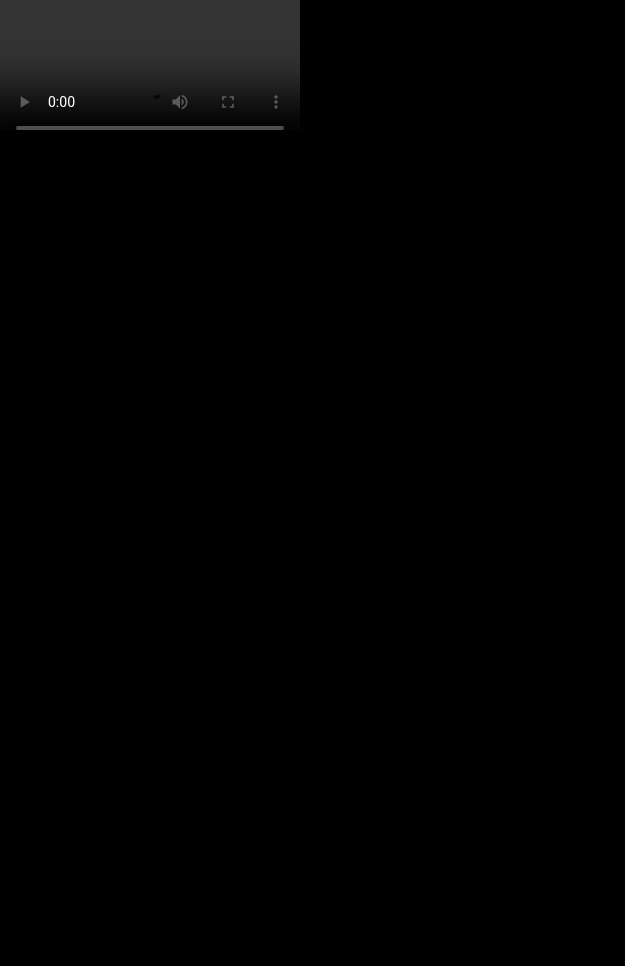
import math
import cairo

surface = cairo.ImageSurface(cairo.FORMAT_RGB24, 625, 966)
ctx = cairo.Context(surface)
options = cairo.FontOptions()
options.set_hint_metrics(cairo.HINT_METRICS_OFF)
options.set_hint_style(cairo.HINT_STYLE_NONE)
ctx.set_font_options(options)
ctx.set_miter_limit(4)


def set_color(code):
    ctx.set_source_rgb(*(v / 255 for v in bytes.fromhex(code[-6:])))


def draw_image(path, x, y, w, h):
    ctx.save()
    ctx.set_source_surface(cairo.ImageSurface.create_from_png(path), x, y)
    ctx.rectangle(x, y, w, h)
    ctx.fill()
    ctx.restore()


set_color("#000000")
ctx.paint()
draw_image("assets/img1.png", 0, 0, 300, 130)
surface.write_to_png("output.png")
